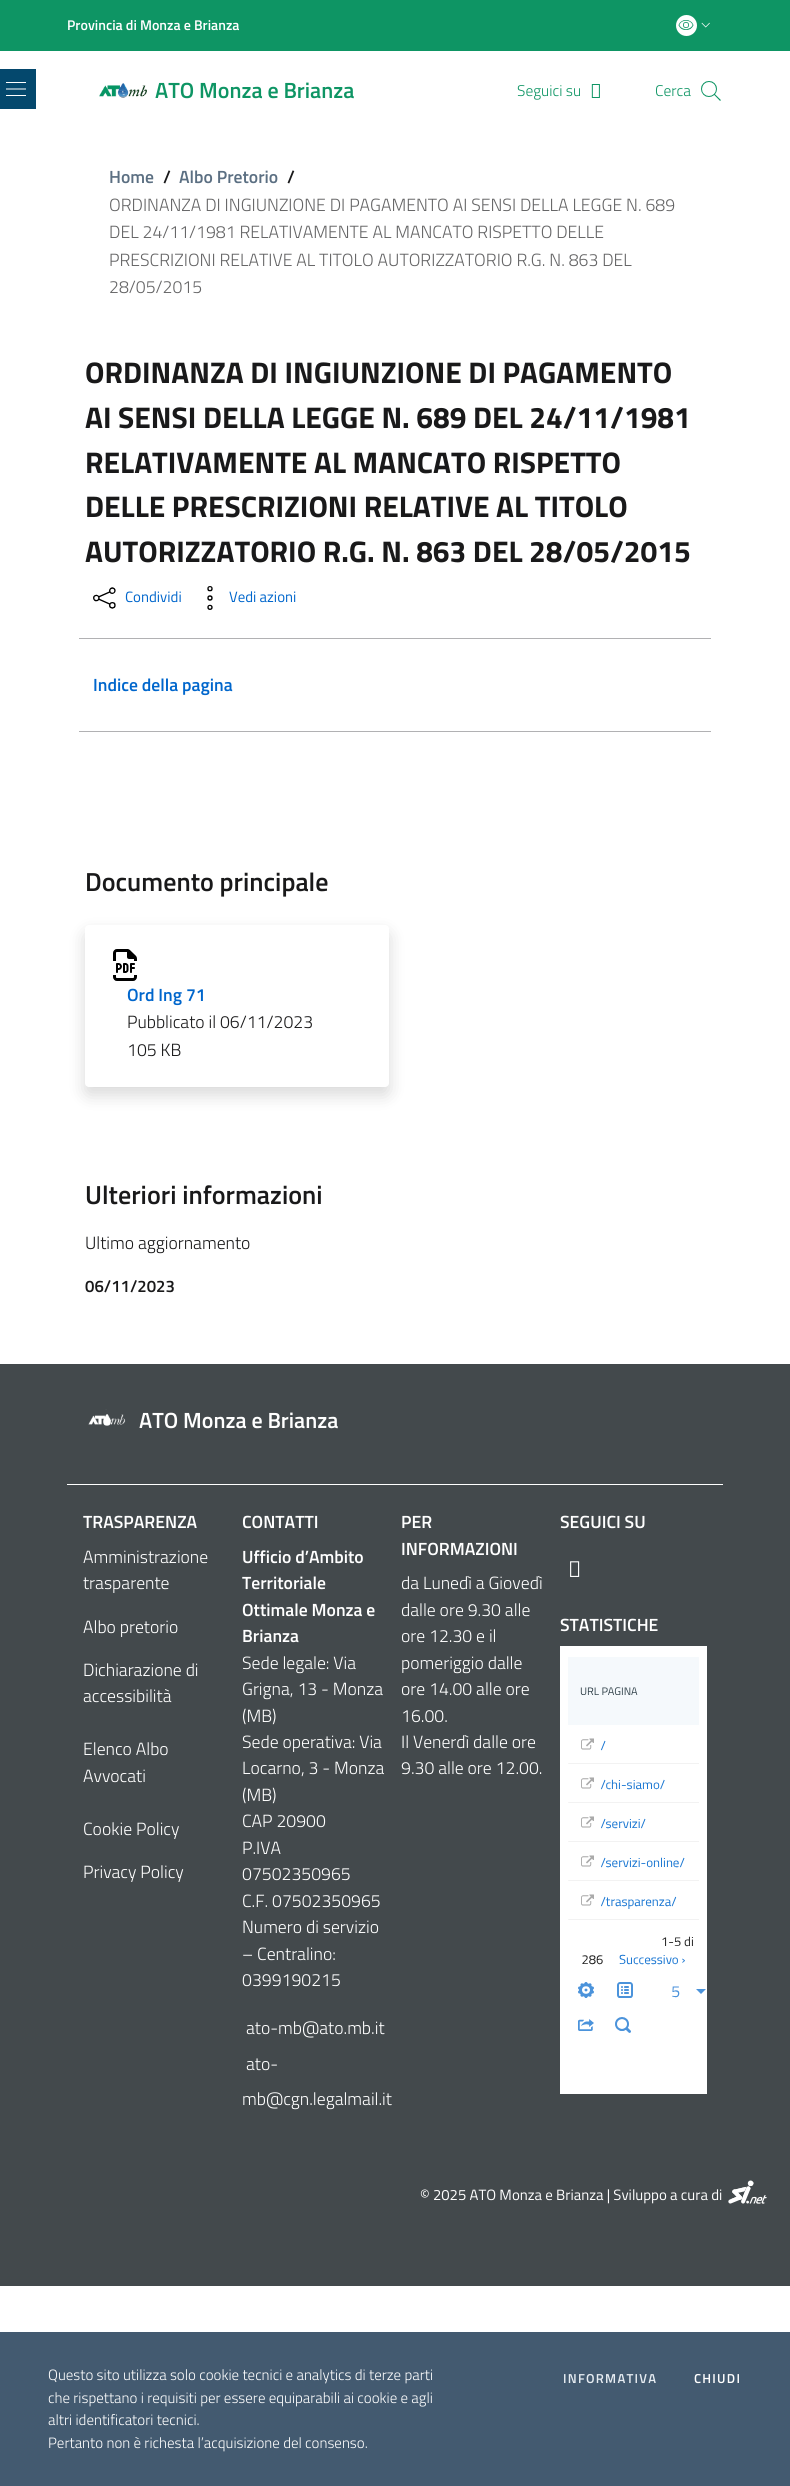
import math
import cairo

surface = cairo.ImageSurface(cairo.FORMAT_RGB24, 790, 2486)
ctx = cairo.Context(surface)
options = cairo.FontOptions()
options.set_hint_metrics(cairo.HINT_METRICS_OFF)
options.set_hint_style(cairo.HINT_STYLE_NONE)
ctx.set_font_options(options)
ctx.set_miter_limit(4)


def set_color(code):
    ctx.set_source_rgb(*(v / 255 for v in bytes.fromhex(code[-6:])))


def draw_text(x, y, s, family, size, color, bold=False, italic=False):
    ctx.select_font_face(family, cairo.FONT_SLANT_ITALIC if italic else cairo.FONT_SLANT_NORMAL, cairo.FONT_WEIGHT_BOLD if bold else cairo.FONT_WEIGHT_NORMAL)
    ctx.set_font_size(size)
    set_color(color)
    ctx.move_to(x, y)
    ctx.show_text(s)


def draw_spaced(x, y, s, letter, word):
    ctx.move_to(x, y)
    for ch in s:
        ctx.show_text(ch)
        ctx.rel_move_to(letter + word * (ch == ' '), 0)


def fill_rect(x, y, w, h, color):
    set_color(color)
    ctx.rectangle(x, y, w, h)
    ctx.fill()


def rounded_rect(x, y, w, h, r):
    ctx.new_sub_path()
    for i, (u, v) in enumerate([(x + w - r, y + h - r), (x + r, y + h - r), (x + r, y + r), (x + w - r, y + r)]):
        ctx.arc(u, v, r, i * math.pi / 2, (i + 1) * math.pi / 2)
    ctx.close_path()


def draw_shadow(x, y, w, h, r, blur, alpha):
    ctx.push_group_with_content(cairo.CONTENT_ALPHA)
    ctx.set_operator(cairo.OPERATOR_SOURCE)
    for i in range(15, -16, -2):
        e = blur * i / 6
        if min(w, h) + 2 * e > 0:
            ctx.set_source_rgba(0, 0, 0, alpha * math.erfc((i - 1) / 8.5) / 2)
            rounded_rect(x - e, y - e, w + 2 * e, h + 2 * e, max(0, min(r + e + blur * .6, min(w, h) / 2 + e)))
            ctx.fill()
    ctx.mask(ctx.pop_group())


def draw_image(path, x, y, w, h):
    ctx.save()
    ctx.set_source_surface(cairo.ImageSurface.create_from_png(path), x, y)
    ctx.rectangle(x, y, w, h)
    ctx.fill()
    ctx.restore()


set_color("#ffffff")
ctx.paint()
fill_rect(0, 0, 790, 51, "#0e9564")
draw_text(67, 30, "Provincia di Monza e Brianza", "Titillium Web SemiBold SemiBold", 14.1, "#ffffff")
ctx.new_path()
ctx.arc(686.5, 25.5, 10.5, 0, 2 * math.pi)
ctx.fill()
draw_image("assets/img1.png", 678, 20, 16, 10)
draw_image("assets/img2.png", 701, 22, 9, 6)
fill_rect(0, 69, 36, 40, "#04486d")
draw_image("assets/img3.png", 6, 82, 20, 14)
draw_image("assets/img4.png", 99, 83, 48, 15)
draw_text(155, 98, "ATO Monza e Brianza", "Titillium Web SemiBold SemiBold", 22, "#0e9564")
draw_text(517, 96, "Seguici su", "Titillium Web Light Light", 15.5, "#0e9564")
draw_image("assets/img5.png", 591, 84, 9, 14)
draw_text(655, 96, "Cerca", "Titillium Web Light Light", 15.5, "#0e9564")
draw_image("assets/img6.png", 701, 81, 20, 20)
draw_text(109, 183, "Home", "Titillium Web SemiBold SemiBold", 17.65, "#5b6f82")
draw_text(163, 183, "/", "Titillium Web SemiBold SemiBold", 17.65, "#19191a")
draw_text(179, 183, "Albo Pretorio", "Titillium Web SemiBold SemiBold", 17.65, "#5b6f82")
draw_text(287, 183, "/", "Titillium Web SemiBold SemiBold", 17.65, "#19191a")
draw_text(109, 211, "ORDINANZA DI INGIUNZIONE DI PAGAMENTO AI SENSI DELLA LEGGE N. 689", "Titillium Web Light Light", 17.65, "#656566")
draw_text(109, 238, "DEL 24/11/1981 RELATIVAMENTE AL MANCATO RISPETTO DELLE", "Titillium Web Light Light", 17.65, "#656566")
draw_text(109, 266, "PRESCRIZIONI RELATIVE AL TITOLO AUTORIZZATORIO R.G. N. 863 DEL", "Titillium Web Light Light", 17.65, "#656566")
draw_text(109, 293, "28/05/2015", "Titillium Web Light Light", 17.65, "#656566")
draw_text(85, 383, "ORDINANZA DI INGIUNZIONE DI PAGAMENTO", "Titillium Web", 29.85, "#19191a", bold=True)
draw_text(85, 428, "AI SENSI DELLA LEGGE N. 689 DEL 24/11/1981", "Titillium Web", 29.85, "#19191a", bold=True)
draw_text(85, 473, "RELATIVAMENTE AL MANCATO RISPETTO", "Titillium Web", 29.85, "#19191a", bold=True)
draw_text(85, 517, "DELLE PRESCRIZIONI RELATIVE AL TITOLO", "Titillium Web", 29.85, "#19191a", bold=True)
draw_text(85, 562, "AUTORIZZATORIO R.G. N. 863 DEL 28/05/2015", "Titillium Web", 29.85, "#19191a", bold=True)
draw_image("assets/img7.png", 93, 587, 23, 22)
draw_text(125, 602, "Condividi", "Titillium Web", 14.9, "#0066cc")
draw_image("assets/img8.png", 207, 586, 6, 24)
draw_text(229, 602, "Vedi azioni", "Titillium Web", 14.9, "#0066cc")
fill_rect(79, 638, 632, 1, "#b1b1b3")
draw_text(93, 691, "Indice della pagina", "Titillium Web SemiBold SemiBold", 17.65, "#0066cc")
fill_rect(79, 731, 632, 1, "#b1b1b3")
draw_text(85, 891, "Documento principale", "Titillium Web SemiBold SemiBold", 26.1, "#19191a")
set_color("#000000")
draw_shadow(85, 933, 304, 162, 4, 8.5, 0.15)
set_color("#ffffff")
rounded_rect(85, 925, 304, 162, 4)
ctx.fill()
draw_image("assets/img9.png", 113, 949, 24, 32)
draw_text(127, 1001, "Ord Ing 71", "Titillium Web SemiBold SemiBold", 17.65, "#0066cc")
draw_text(127, 1028, "Pubblicato il 06/11/2023", "Titillium Web Light Light", 17.65, "#19191a")
draw_text(127, 1056, "105 KB", "Titillium Web Light Light", 17.65, "#19191a")
draw_text(85, 1204, "Ulteriori informazioni", "Titillium Web SemiBold SemiBold", 26.1, "#19191a")
draw_text(85, 1249, "Ultimo aggiornamento", "Titillium Web Light Light", 17.65, "#19191a")
draw_text(85, 1292, "06/11/2023", "Titillium Web SemiBold SemiBold", 16.75, "#19191a")
fill_rect(0, 1364, 790, 922, "#43494c")
draw_image("assets/img10.png", 88, 1409, 38, 17)
draw_text(139, 1428, "ATO Monza e Brianza", "Titillium Web SemiBold SemiBold", 22, "#ffffff")
fill_rect(67, 1484, 656, 1, "#ffffff")
draw_text(83, 1528, "TRASPARENZA", "Titillium Web SemiBold SemiBold", 17.65, "#ffffff")
draw_text(83, 1563, "Amministrazione", "Titillium Web Light Light", 17.65, "#ffffff")
draw_text(83, 1589, "trasparente", "Titillium Web Light Light", 17.65, "#ffffff")
draw_text(83, 1633, "Albo pretorio", "Titillium Web Light Light", 17.65, "#ffffff")
draw_text(83, 1676, "Dichiarazione di", "Titillium Web Light Light", 17.65, "#ffffff")
draw_text(83, 1702, "accessibilità", "Titillium Web Light Light", 17.65, "#ffffff")
draw_text(83, 1755, "Elenco Albo", "Titillium Web Light Light", 17.65, "#ffffff")
draw_text(83, 1782, "Avvocati", "Titillium Web Light Light", 17.65, "#ffffff")
draw_text(83, 1835, "Cookie Policy", "Titillium Web Light Light", 17.65, "#ffffff")
draw_text(83, 1878, "Privacy Policy", "Titillium Web Light Light", 17.65, "#ffffff")
draw_text(242, 1528, "CONTATTI", "Titillium Web SemiBold SemiBold", 17.65, "#ffffff")
draw_text(242, 1563, "Ufficio d’Ambito", "Titillium Web SemiBold SemiBold", 17.65, "#ffffff")
draw_text(242, 1589, "Territoriale", "Titillium Web SemiBold SemiBold", 17.65, "#ffffff")
draw_text(242, 1616, "Ottimale Monza e", "Titillium Web SemiBold SemiBold", 17.65, "#ffffff")
draw_text(242, 1642, "Brianza", "Titillium Web SemiBold SemiBold", 17.65, "#ffffff")
draw_text(242, 1669, "Sede legale: Via", "Titillium Web Light Light", 17.65, "#ffffff")
draw_text(242, 1695, "Grigna, 13 - Monza", "Titillium Web Light Light", 17.65, "#ffffff")
draw_text(242, 1722, "(MB)", "Titillium Web Light Light", 17.65, "#ffffff")
draw_text(242, 1748, "Sede operativa: Via", "Titillium Web Light Light", 17.65, "#ffffff")
draw_text(242, 1774, "Locarno, 3 - Monza", "Titillium Web Light Light", 17.65, "#ffffff")
draw_text(242, 1801, "(MB)", "Titillium Web Light Light", 17.65, "#ffffff")
draw_text(242, 1827, "CAP 20900", "Titillium Web Light Light", 17.65, "#ffffff")
draw_text(242, 1854, "P.IVA", "Titillium Web Light Light", 17.65, "#ffffff")
draw_text(242, 1880, "07502350965", "Titillium Web Light Light", 17.65, "#ffffff")
draw_text(242, 1907, "C.F. 07502350965", "Titillium Web Light Light", 17.65, "#ffffff")
draw_text(242, 1933, "Numero di servizio", "Titillium Web Light Light", 17.65, "#ffffff")
draw_text(242, 1960, "– Centralino:", "Titillium Web Light Light", 17.65, "#ffffff")
draw_text(242, 1986, "0399190215", "Titillium Web Light Light", 17.65, "#ffffff")
draw_text(246, 2034, "ato-mb@ato.mb.it", "Titillium Web Light Light", 17.65, "#ffffff")
draw_text(246, 2070, "ato-", "Titillium Web Light Light", 17.65, "#ffffff")
draw_text(242, 2105, "mb@cgn.legalmail.it", "Titillium Web Light Light", 17.65, "#ffffff")
draw_text(401, 1528, "PER", "Titillium Web SemiBold SemiBold", 17.65, "#ffffff")
draw_text(401, 1555, "INFORMAZIONI", "Titillium Web SemiBold SemiBold", 17.65, "#ffffff")
draw_text(401, 1589, "da Lunedì a Giovedì", "Titillium Web Light Light", 17.65, "#ffffff")
draw_text(401, 1616, "dalle ore 9.30 alle", "Titillium Web Light Light", 17.65, "#ffffff")
draw_text(401, 1642, "ore 12.30 e il", "Titillium Web Light Light", 17.65, "#ffffff")
draw_text(401, 1669, "pomeriggio dalle", "Titillium Web Light Light", 17.65, "#ffffff")
draw_text(401, 1695, "ore 14.00 alle ore", "Titillium Web Light Light", 17.65, "#ffffff")
draw_text(401, 1722, "16.00.", "Titillium Web Light Light", 17.65, "#ffffff")
draw_text(401, 1748, "Il Venerdì dalle ore", "Titillium Web Light Light", 17.65, "#ffffff")
draw_text(401, 1774, "9.30 alle ore 12.00.", "Titillium Web Light Light", 17.65, "#ffffff")
draw_text(560, 1528, "SEGUICI SU", "Titillium Web SemiBold SemiBold", 17.65, "#ffffff")
draw_image("assets/img11.png", 570, 1561, 10, 16)
draw_text(560, 1631, "STATISTICHE", "Titillium Web SemiBold SemiBold", 17.65, "#ffffff")
draw_image("assets/img12.png", 560, 1646, 147, 448)
draw_text(420, 2200, "© 2025 ATO Monza e Brianza | Sviluppo a cura di", "Titillium Web", 14.9, "#ffffff")
draw_image("assets/img13.png", 728, 2180, 39, 24)
fill_rect(0, 2332, 790, 154, "#435a70")
draw_text(48, 2380, "Questo sito utilizza solo cookie tecnici e analytics di terze parti", "Titillium Web Light Light", 14.95, "#ffffff")
draw_text(48, 2403, "che rispettano i requisiti per essere equiparabili ai cookie e agli", "Titillium Web Light Light", 14.95, "#ffffff")
draw_text(48, 2425, "altri identificatori tecnici.", "Titillium Web Light Light", 14.95, "#ffffff")
draw_text(48, 2448, "Pertanto non è richesta l’acquisizione del consenso.", "Titillium Web Light Light", 14.95, "#ffffff")
ctx.select_font_face("Titillium Web SemiBold SemiBold")
ctx.set_font_size(13)
set_color("#e6ecf2")
draw_spaced(563, 2383, "INFORMATIVA", 1.25, 0)
set_color("#ffffff")
draw_spaced(694, 2383, "CHIUDI", 1.25, 0)
surface.write_to_png("output.png")
